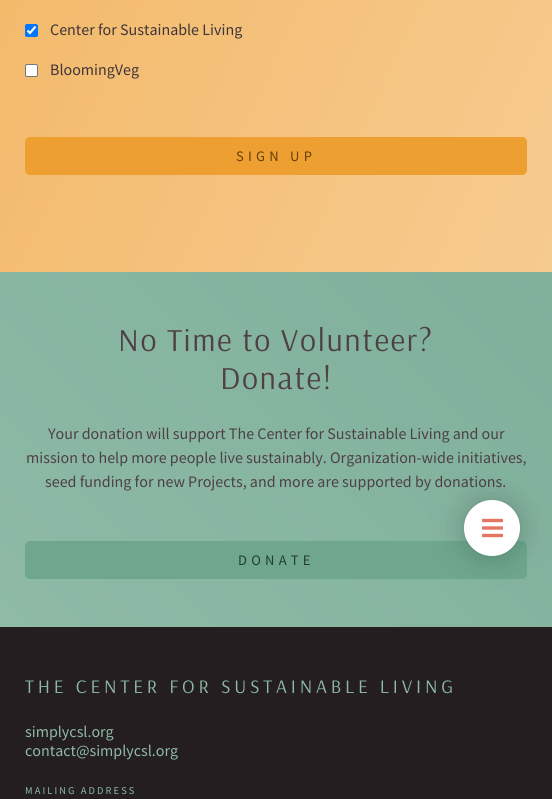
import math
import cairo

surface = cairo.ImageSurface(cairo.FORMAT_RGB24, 552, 799)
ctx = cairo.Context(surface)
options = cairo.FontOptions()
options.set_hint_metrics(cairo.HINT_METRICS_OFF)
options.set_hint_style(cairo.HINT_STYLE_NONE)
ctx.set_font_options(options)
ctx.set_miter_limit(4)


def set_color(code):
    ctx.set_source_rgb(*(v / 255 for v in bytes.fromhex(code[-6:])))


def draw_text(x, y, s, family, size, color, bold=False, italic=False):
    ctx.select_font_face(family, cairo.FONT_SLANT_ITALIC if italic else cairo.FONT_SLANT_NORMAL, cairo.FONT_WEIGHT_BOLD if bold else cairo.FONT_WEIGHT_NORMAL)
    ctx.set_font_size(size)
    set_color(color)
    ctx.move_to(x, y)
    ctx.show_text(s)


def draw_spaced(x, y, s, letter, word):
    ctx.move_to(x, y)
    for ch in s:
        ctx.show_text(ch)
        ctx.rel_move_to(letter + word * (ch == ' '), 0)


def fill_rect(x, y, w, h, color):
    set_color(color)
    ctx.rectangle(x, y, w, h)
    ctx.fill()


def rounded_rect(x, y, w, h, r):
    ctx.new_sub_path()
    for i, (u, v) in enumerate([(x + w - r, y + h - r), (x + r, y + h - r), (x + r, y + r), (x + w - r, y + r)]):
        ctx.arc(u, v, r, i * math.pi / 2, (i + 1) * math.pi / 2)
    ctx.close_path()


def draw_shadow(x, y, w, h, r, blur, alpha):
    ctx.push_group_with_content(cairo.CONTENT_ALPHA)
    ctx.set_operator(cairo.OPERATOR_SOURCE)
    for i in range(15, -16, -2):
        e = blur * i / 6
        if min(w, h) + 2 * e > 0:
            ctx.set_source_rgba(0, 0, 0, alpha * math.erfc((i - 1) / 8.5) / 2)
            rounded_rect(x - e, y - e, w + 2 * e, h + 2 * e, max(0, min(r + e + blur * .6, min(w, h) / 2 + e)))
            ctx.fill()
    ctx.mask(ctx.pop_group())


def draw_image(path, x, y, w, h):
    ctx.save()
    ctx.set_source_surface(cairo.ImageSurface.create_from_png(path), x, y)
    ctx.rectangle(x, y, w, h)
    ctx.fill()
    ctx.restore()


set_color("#ffffff")
ctx.paint()
gradient = cairo.LinearGradient(-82, -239, 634, 95)
gradient.add_color_stop_rgba(0, 0.949, 0.71, 0.38, 1)
gradient.add_color_stop_rgba(1, 0.965, 0.796, 0.565, 1)
ctx.set_source(gradient)
ctx.rectangle(0, 0, 552, 272)
ctx.fill()
set_color("#0075ff")
rounded_rect(25, 24, 13, 13, 2)
ctx.fill()
ctx.new_path()
ctx.move_to(27.5, 30.5)
ctx.line_to(30, 33)
ctx.line_to(35.5, 26.5)
set_color("#ffffff")
ctx.set_line_width(2.1)
ctx.stroke()
draw_text(50, 35, "Center for Sustainable Living", "Source Sans Pro", 16, "#403538")
set_color("#ffffff")
rounded_rect(25.5, 64.5, 12, 12, 1.5)
ctx.fill_preserve()
set_color("#767676")
ctx.set_line_width(1)
ctx.stroke()
draw_text(50, 75, "BloomingVeg", "Source Sans Pro", 16, "#403538")
set_color("#ee9f32")
rounded_rect(25, 137, 502, 38, 5)
ctx.fill()
ctx.set_font_size(14.5)
set_color("#653e08")
draw_spaced(236, 161, "SIGN UP", 4.25, 0)
gradient = cairo.LinearGradient(49, 676, 503, 223)
gradient.add_color_stop_rgba(0, 0.557, 0.729, 0.651, 1)
gradient.add_color_stop_rgba(1, 0.494, 0.69, 0.604, 1)
ctx.set_source(gradient)
ctx.rectangle(0, 272, 552, 355)
ctx.fill()
ctx.select_font_face("Arsenal")
ctx.set_font_size(32)
set_color("#4e4045")
draw_spaced(118, 351, "No Time to Volunteer?", 1.6, 0)
draw_spaced(220, 389, "Donate!", 1.6, 0)
draw_text(48, 439, "Your donation will support The Center for Sustainable Living and our", "Source Sans Pro", 16, "#4e4045")
draw_text(26, 463, "mission to help more people live sustainably. Organization-wide initiatives,", "Source Sans Pro", 16, "#4e4045")
draw_text(45, 487, "seed funding for new Projects, and more are supported by donations.", "Source Sans Pro", 16, "#4e4045")
set_color("#6ea78d")
rounded_rect(25, 541, 502, 38, 5)
ctx.fill()
ctx.set_font_size(14.5)
set_color("#253d32")
draw_spaced(238, 565, "DONATE", 4.25, 0)
set_color("#000000")
draw_shadow(464, 500, 56, 56, 28, 16, 0.2)
set_color("#ffffff")
ctx.arc(492, 528, 28, 0, 2 * math.pi)
ctx.fill()
draw_image("assets/img1.png", 482, 518, 21, 20)
fill_rect(0, 627, 552, 172, "#241e20")
ctx.select_font_face("Arsenal")
ctx.set_font_size(19.2)
set_color("#8ebaa6")
draw_spaced(25, 693, "THE CENTER FOR SUSTAINABLE LIVING", 3.85, 0)
draw_text(25, 737, "simplycsl.org", "Source Sans Pro", 16, "#8ebaa6")
draw_text(25, 756, "contact@simplycsl.org", "Source Sans Pro", 16, "#8ebaa6")
ctx.set_font_size(10.4)
draw_spaced(25, 794, "MAILING ADDRESS", 2.1, 0)
surface.write_to_png("output.png")
